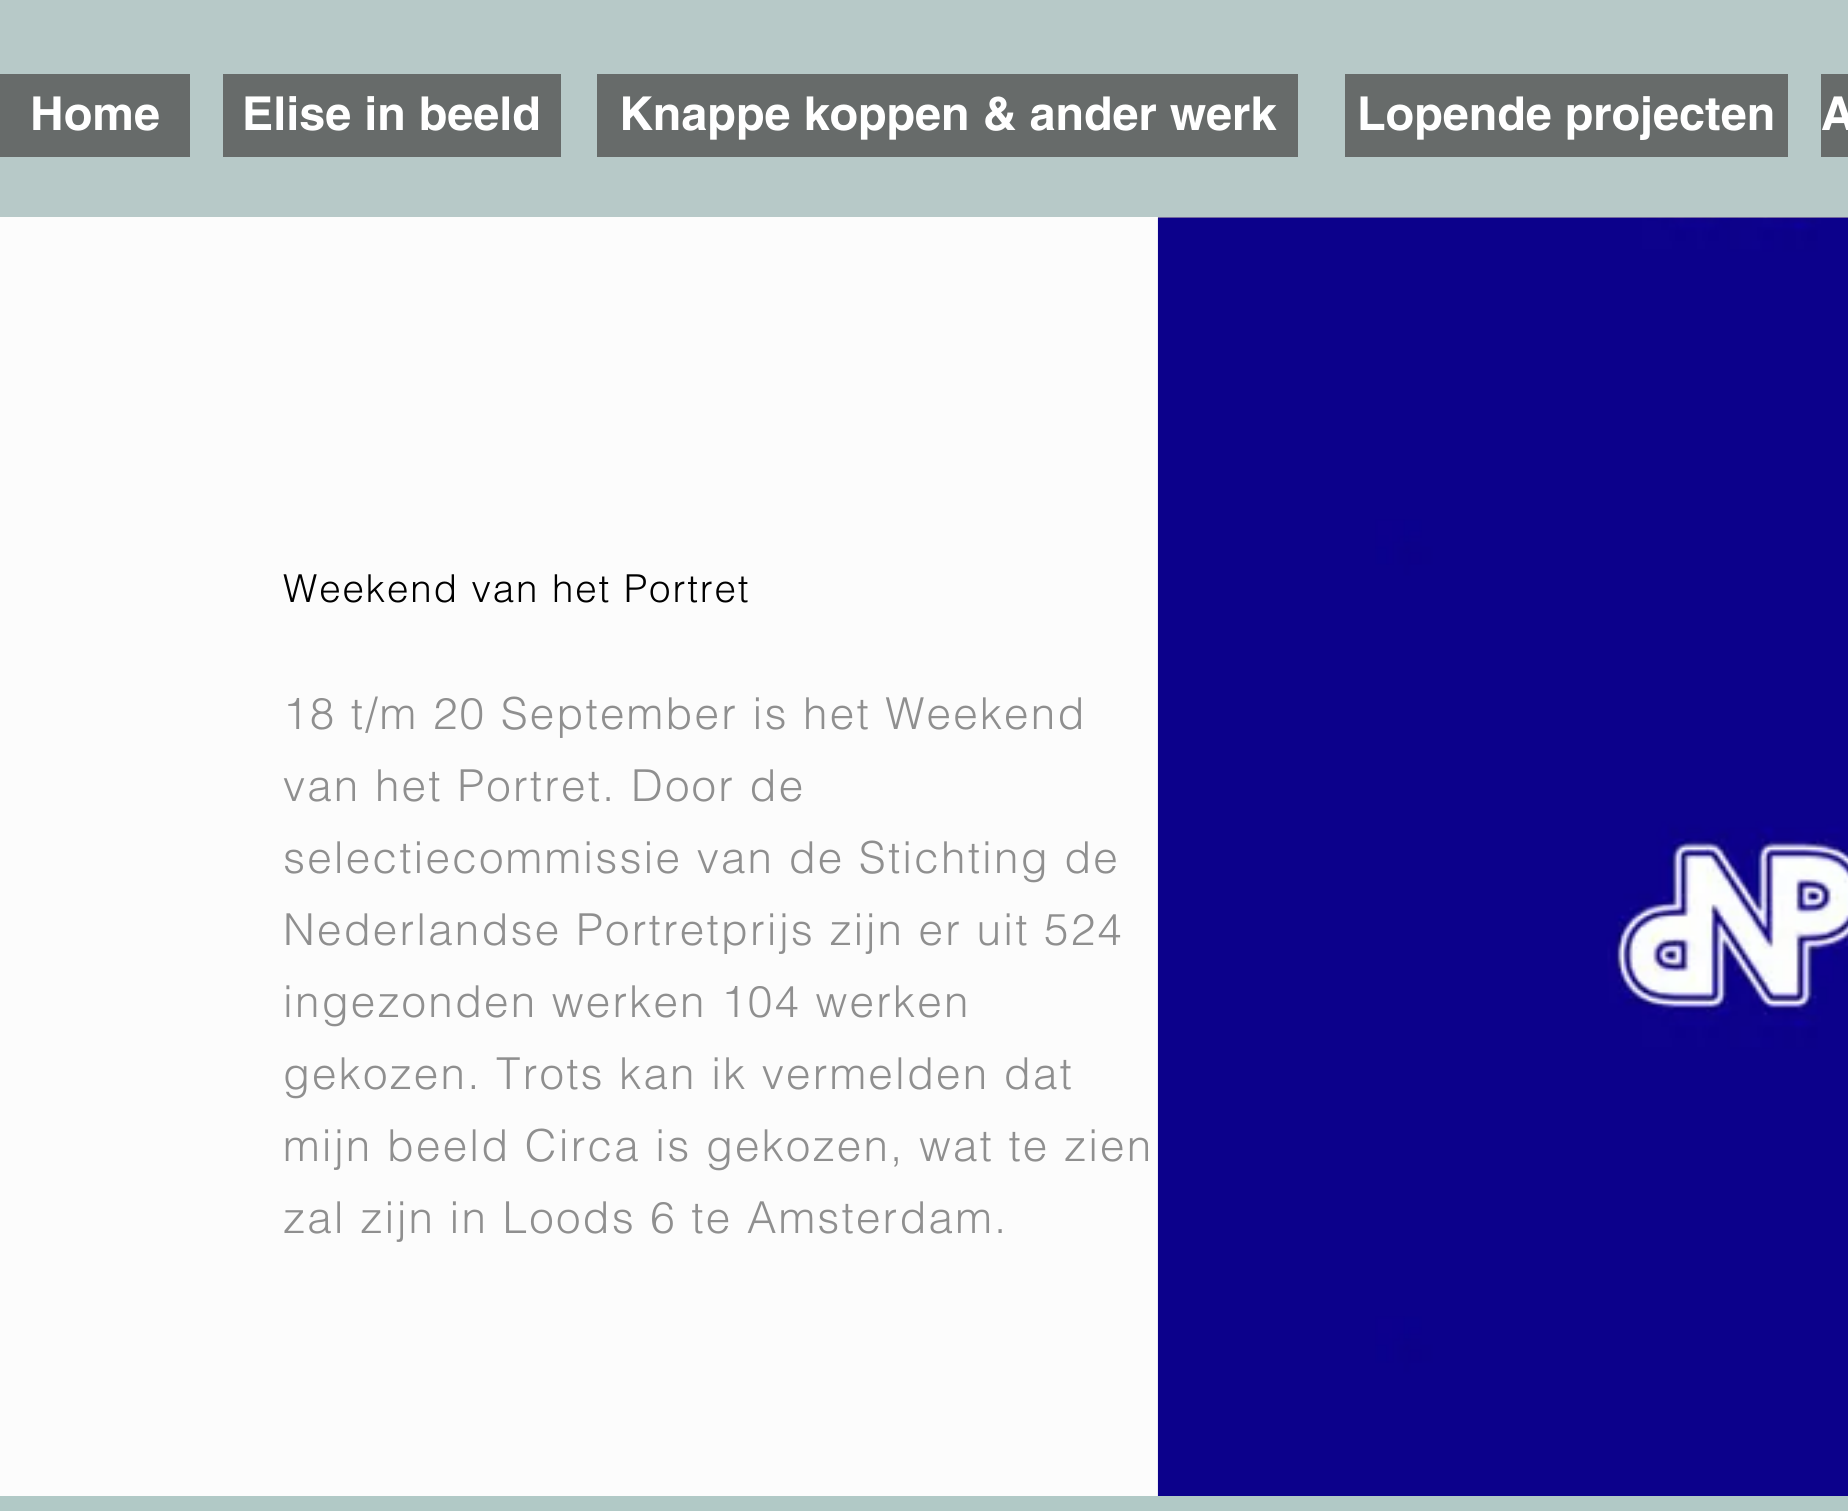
import math
import cairo

surface = cairo.ImageSurface(cairo.FORMAT_RGB24, 1848, 1511)
ctx = cairo.Context(surface)
options = cairo.FontOptions()
options.set_hint_metrics(cairo.HINT_METRICS_OFF)
options.set_hint_style(cairo.HINT_STYLE_NONE)
ctx.set_font_options(options)
ctx.set_miter_limit(4)


def set_color(code):
    ctx.set_source_rgb(*(v / 255 for v in bytes.fromhex(code[-6:])))


def draw_text(x, y, s, family, size, color, bold=False, italic=False):
    ctx.select_font_face(family, cairo.FONT_SLANT_ITALIC if italic else cairo.FONT_SLANT_NORMAL, cairo.FONT_WEIGHT_BOLD if bold else cairo.FONT_WEIGHT_NORMAL)
    ctx.set_font_size(size)
    set_color(color)
    ctx.move_to(x, y)
    ctx.show_text(s)


def draw_spaced(x, y, s, letter, word):
    ctx.move_to(x, y)
    for ch in s:
        ctx.show_text(ch)
        ctx.rel_move_to(letter + word * (ch == ' '), 0)


def fill_rect(x, y, w, h, color):
    set_color(color)
    ctx.rectangle(x, y, w, h)
    ctx.fill()


def draw_image(path, x, y, w, h):
    ctx.save()
    ctx.set_source_surface(cairo.ImageSurface.create_from_png(path), x, y)
    ctx.rectangle(x, y, w, h)
    ctx.fill()
    ctx.restore()


set_color("#b7c9c8")
ctx.paint()
fill_rect(0, 74, 190, 83, "#676b6a")
draw_text(30, 130, "Home", "helvetica", 46.75, "#ffffff", bold=True)
fill_rect(223, 74, 338, 83, "#676b6a")
draw_text(242, 130, "Elise in beeld", "helvetica", 46.75, "#ffffff", bold=True)
fill_rect(597, 74, 701, 83, "#676b6a")
draw_text(619, 130, "Knappe koppen & ander werk", "helvetica", 46.75, "#ffffff", bold=True)
fill_rect(1345, 74, 443, 83, "#676b6a")
draw_text(1357, 130, "Lopende projecten", "helvetica", 46.75, "#ffffff", bold=True)
fill_rect(1821, 74, 27, 83, "#676b6a")
draw_text(1821, 130, "A", "helvetica", 46.75, "#ffffff", bold=True)
fill_rect(0, 217, 1158, 1279, "#fcfcfc")
ctx.select_font_face("helvetica Light")
ctx.set_font_size(38.5)
set_color("#000000")
draw_spaced(283, 602, "Weekend van het Portret", 1.9, 0)
ctx.set_font_size(44)
set_color("#8f8f8f")
draw_spaced(283, 729, "18 t/m 20 September is het Weekend", 2.2, 0)
draw_spaced(283, 801, "van het Portret. Door de", 2.2, 0)
draw_spaced(283, 873, "selectiecommissie van de Stichting de", 2.2, 0)
draw_spaced(283, 945, "Nederlandse Portretprijs zijn er uit 524", 2.2, 0)
draw_spaced(283, 1017, "ingezonden werken 104 werken", 2.2, 0)
draw_spaced(283, 1089, "gekozen. Trots kan ik vermelden dat", 2.2, 0)
draw_spaced(283, 1161, "mijn beeld Circa is gekozen, wat te zien", 2.2, 0)
draw_spaced(283, 1233, "zal zijn in Loods 6 te Amsterdam.", 2.2, 0)
fill_rect(1158, 217, 690, 1, "#ffefba")
draw_image("assets/img1.png", 1157, 217, 691, 1279)
fill_rect(0, 1496, 1848, 15, "#b1c9c6")
surface.write_to_png("output.png")
